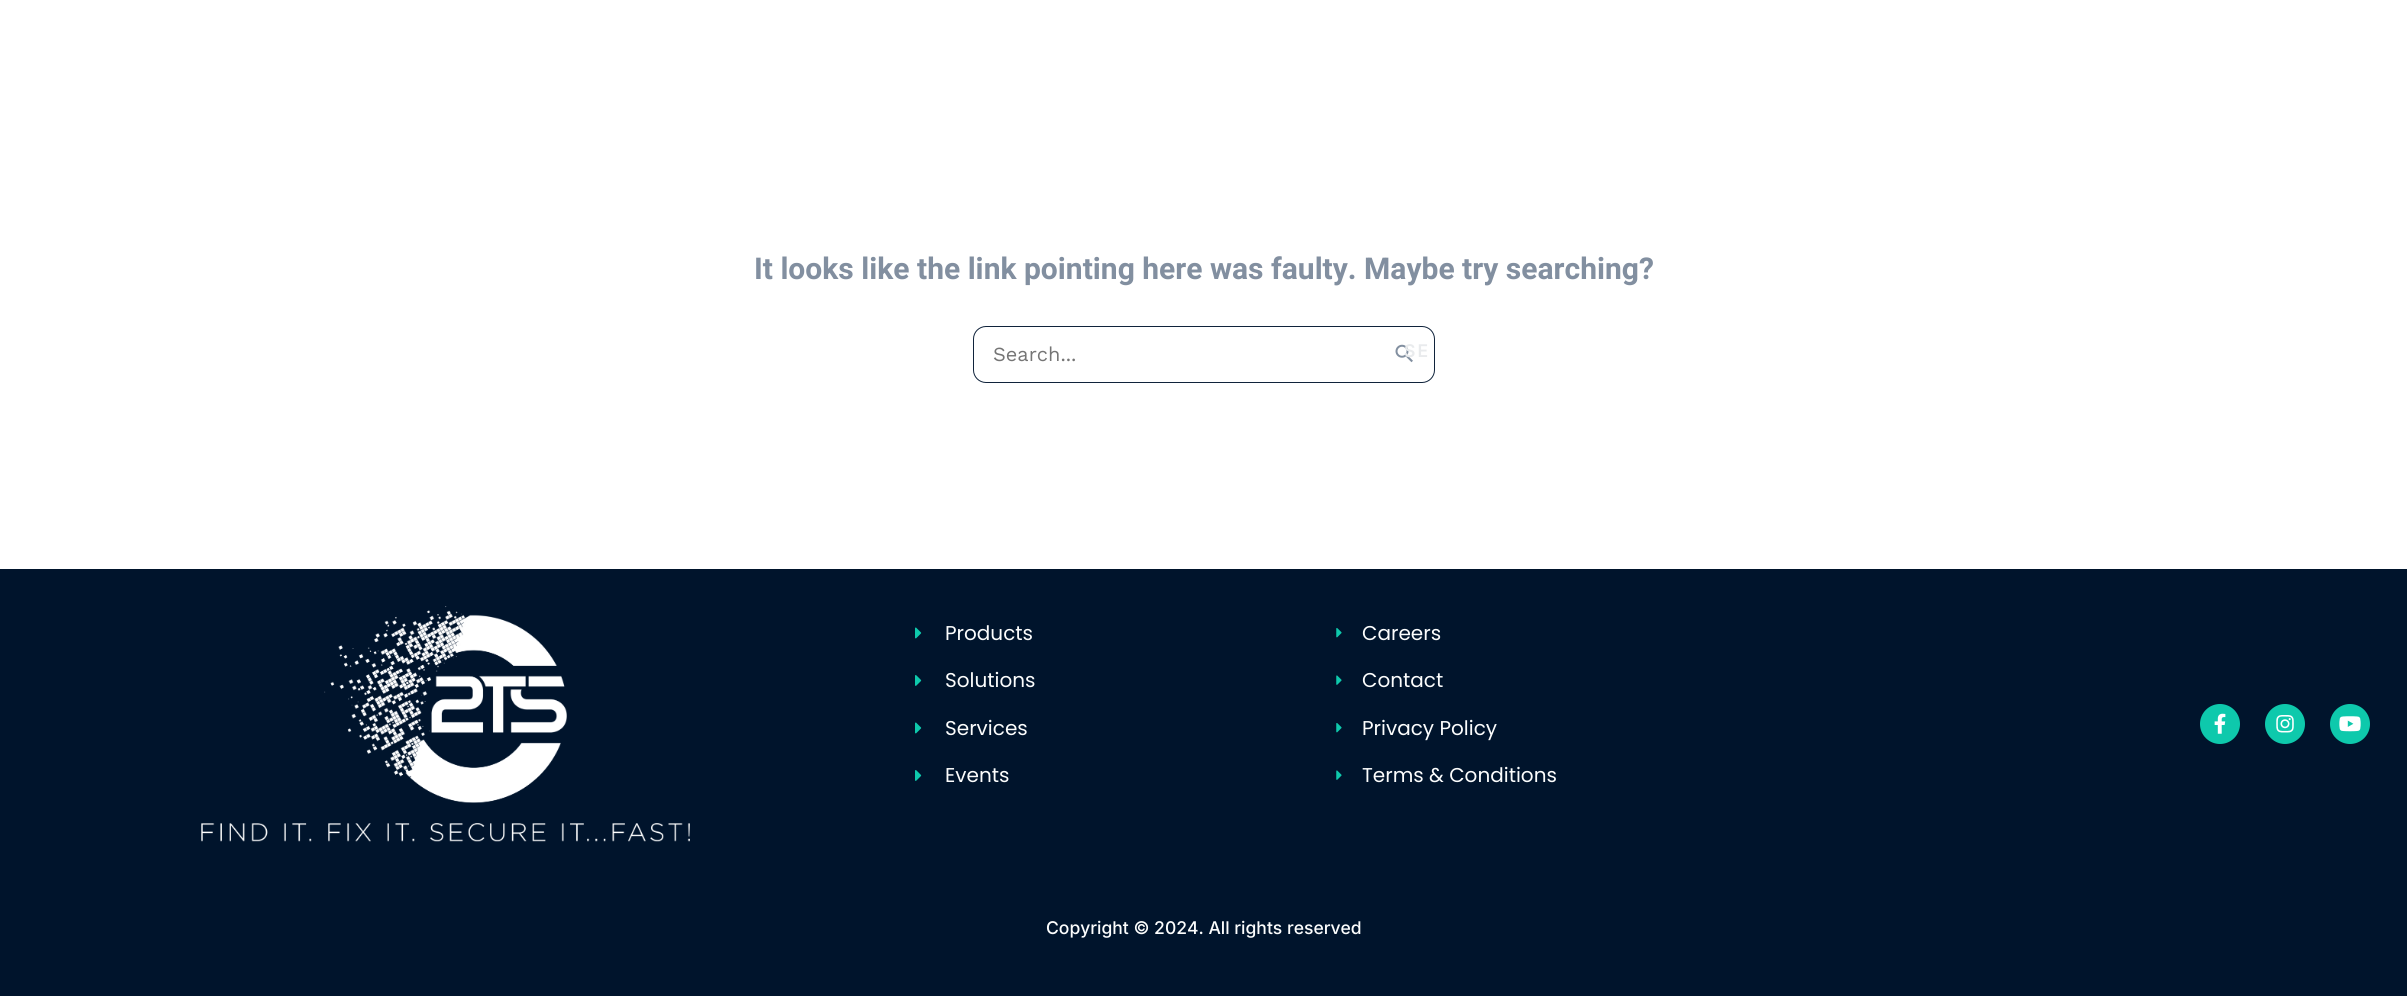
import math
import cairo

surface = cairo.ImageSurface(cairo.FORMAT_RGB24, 2407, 996)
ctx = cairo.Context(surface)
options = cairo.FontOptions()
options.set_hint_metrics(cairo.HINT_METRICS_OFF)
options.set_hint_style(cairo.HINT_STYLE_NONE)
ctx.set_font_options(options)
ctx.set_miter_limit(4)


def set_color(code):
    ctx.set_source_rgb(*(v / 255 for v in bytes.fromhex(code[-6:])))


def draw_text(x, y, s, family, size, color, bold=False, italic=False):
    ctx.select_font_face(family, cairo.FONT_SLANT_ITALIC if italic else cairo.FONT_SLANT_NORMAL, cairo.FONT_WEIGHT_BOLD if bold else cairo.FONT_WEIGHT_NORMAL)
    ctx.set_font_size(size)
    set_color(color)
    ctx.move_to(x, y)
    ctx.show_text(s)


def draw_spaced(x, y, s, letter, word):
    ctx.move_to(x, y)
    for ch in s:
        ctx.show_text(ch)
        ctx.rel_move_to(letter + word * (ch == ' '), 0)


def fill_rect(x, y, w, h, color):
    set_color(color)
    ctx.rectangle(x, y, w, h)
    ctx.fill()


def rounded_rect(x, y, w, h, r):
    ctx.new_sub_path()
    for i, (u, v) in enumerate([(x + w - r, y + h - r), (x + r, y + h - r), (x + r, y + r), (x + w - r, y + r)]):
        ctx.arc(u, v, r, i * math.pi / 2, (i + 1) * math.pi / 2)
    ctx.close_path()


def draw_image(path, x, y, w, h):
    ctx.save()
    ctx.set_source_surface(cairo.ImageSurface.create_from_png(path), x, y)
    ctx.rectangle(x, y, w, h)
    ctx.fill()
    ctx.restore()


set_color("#ffffff")
ctx.paint()
draw_text(754, 279, "It looks like the link pointing here was faulty. Maybe try searching?", "Heebo", 30, "#828fa0", bold=True)
rounded_rect(973.5, 326.5, 461, 56, 12.5)
set_color("#10233b")
ctx.set_line_width(1)
ctx.stroke()
draw_image("assets/img1.png", 1395, 344, 18, 19)
draw_text(993, 361, "Search...", "Work Sans", 20, "#757575")
ctx.select_font_face("Inter SemiBold")
ctx.set_font_size(17.5)
set_color("#e9ebed")
draw_spaced(1404, 357, "SE", 2, 0)
fill_rect(0, 569, 2407, 427, "#00142c")
draw_image("assets/img2.png", 201, 606, 489, 236)
draw_image("assets/img3.png", 915, 627, 7, 12)
draw_text(945, 640, "Products", "Poppins", 20, "#fcfdfd")
draw_image("assets/img4.png", 915, 675, 7, 11)
draw_text(945, 687, "Solutions", "Poppins", 20, "#fcfdfd")
draw_image("assets/img3.png", 915, 722, 7, 12)
draw_text(945, 735, "Services", "Poppins", 20, "#fcfdfd")
draw_image("assets/img4.png", 915, 770, 7, 11)
draw_text(945, 782, "Events", "Poppins", 20, "#fcfdfd")
draw_image("assets/img5.png", 1336, 628, 6, 10)
draw_text(1362, 640, "Careers", "Poppins", 20, "#fcfdfd")
draw_image("assets/img6.png", 1336, 675, 6, 10)
draw_text(1362, 687, "Contact", "Poppins", 20, "#fcfdfd")
draw_image("assets/img5.png", 1336, 723, 6, 10)
draw_text(1362, 735, "Privacy Policy", "Poppins", 20, "#fcfdfd")
draw_image("assets/img6.png", 1336, 770, 6, 10)
draw_text(1362, 782, "Terms & Conditions", "Poppins", 20, "#fcfdfd")
set_color("#0ec9ac")
ctx.new_path()
ctx.arc(2220, 724, 20, 0, 2 * math.pi)
ctx.fill()
draw_image("assets/img7.png", 2214, 713, 12, 21)
ctx.arc(2285, 724, 20, 0, 2 * math.pi)
ctx.fill()
draw_image("assets/img8.png", 2276, 715, 18, 18)
ctx.arc(2350, 724, 20, 0, 2 * math.pi)
ctx.fill()
draw_image("assets/img9.png", 2339, 716, 22, 16)
draw_text(1046, 934, "Copyright © 2024. All rights reserved", "Inter Medium", 17.5, "#fcfdfd")
surface.write_to_png("output.png")
